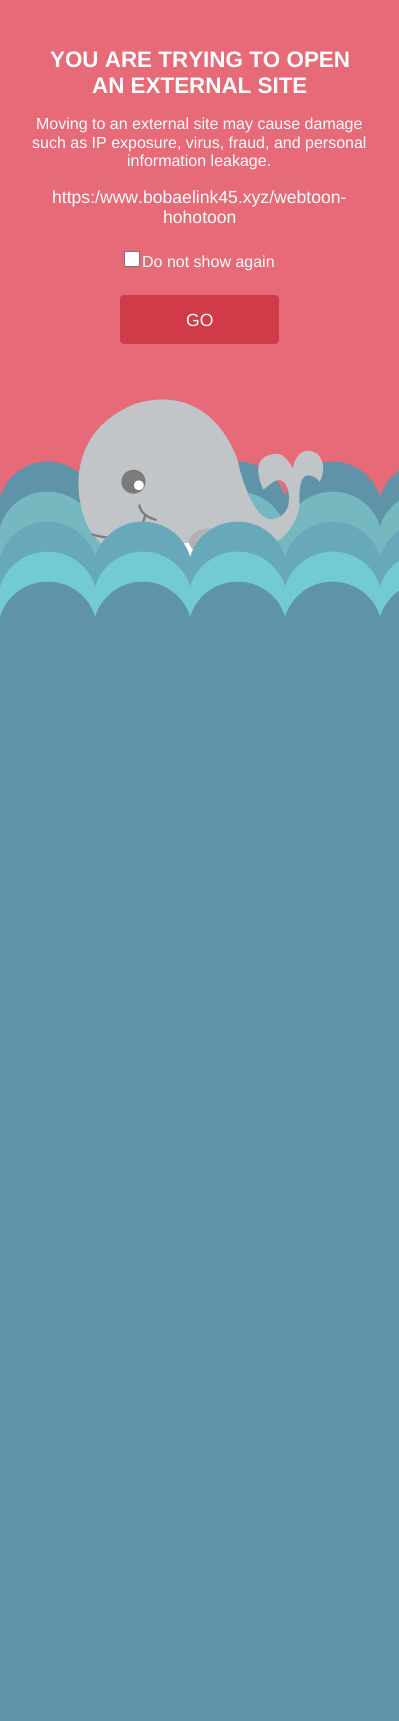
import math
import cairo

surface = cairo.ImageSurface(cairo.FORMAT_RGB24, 399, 1721)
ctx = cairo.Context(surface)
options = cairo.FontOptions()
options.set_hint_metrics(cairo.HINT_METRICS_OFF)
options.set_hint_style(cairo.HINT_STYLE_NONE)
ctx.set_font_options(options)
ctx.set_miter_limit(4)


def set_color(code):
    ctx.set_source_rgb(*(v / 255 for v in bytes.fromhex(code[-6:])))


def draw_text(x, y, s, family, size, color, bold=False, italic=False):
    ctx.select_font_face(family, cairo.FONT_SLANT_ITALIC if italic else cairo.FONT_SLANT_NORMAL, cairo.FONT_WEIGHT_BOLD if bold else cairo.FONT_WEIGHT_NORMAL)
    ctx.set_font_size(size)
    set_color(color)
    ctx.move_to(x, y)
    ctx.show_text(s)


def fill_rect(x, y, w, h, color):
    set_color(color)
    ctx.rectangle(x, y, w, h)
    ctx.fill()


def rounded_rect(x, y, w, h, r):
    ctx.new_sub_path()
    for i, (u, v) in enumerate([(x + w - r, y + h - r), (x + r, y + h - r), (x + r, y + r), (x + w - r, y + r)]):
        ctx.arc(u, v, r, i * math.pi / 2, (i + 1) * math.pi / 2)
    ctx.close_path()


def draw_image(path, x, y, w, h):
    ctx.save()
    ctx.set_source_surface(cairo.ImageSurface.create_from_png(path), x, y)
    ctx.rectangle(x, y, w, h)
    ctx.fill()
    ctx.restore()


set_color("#5f93a8")
ctx.paint()
fill_rect(0, 0, 399, 497, "#e66a77")
draw_text(50, 67, "YOU ARE TRYING TO OPEN", "Liberation Sans", 22.4, "#ffffff", bold=True)
draw_text(92, 93, "AN EXTERNAL SITE", "Liberation Sans", 22.4, "#ffffff", bold=True)
draw_text(36, 129, "Moving to an external site may cause damage", "Liberation Sans", 16, "#ffffff")
draw_text(32, 148, "such as IP exposure, virus, fraud, and personal", "Liberation Sans", 16, "#ffffff")
draw_text(127, 166, "information leakage.", "Liberation Sans", 16, "#ffffff")
draw_text(52, 203, "https:/www.bobaelink45.xyz/webtoon-", "Liberation Sans", 17.6, "#ffffff")
draw_text(163, 223, "hohotoon", "Liberation Sans", 17.6, "#ffffff")
rounded_rect(124.5, 251.5, 15, 15, 1.5)
ctx.fill_preserve()
set_color("#767676")
ctx.set_line_width(1)
ctx.stroke()
draw_text(142, 267, "Do not show again", "Liberation Sans", 16, "#ffffff")
set_color("#d13b49")
rounded_rect(120, 295, 159, 49, 4)
ctx.fill()
draw_text(186, 326, "GO", "Liberation Sans", 17.6, "#ffffff")
draw_image("assets/img2.png", 0, 461, 399, 51)
draw_image("assets/img3.png", 0, 491, 399, 66)
draw_image("assets/img1.png", 78, 399, 246, 158)
draw_image("assets/img4.png", 0, 521, 399, 66)
draw_image("assets/img5.png", 0, 551, 399, 66)
draw_image("assets/img6.png", 0, 581, 399, 65)
surface.write_to_png("output.png")
